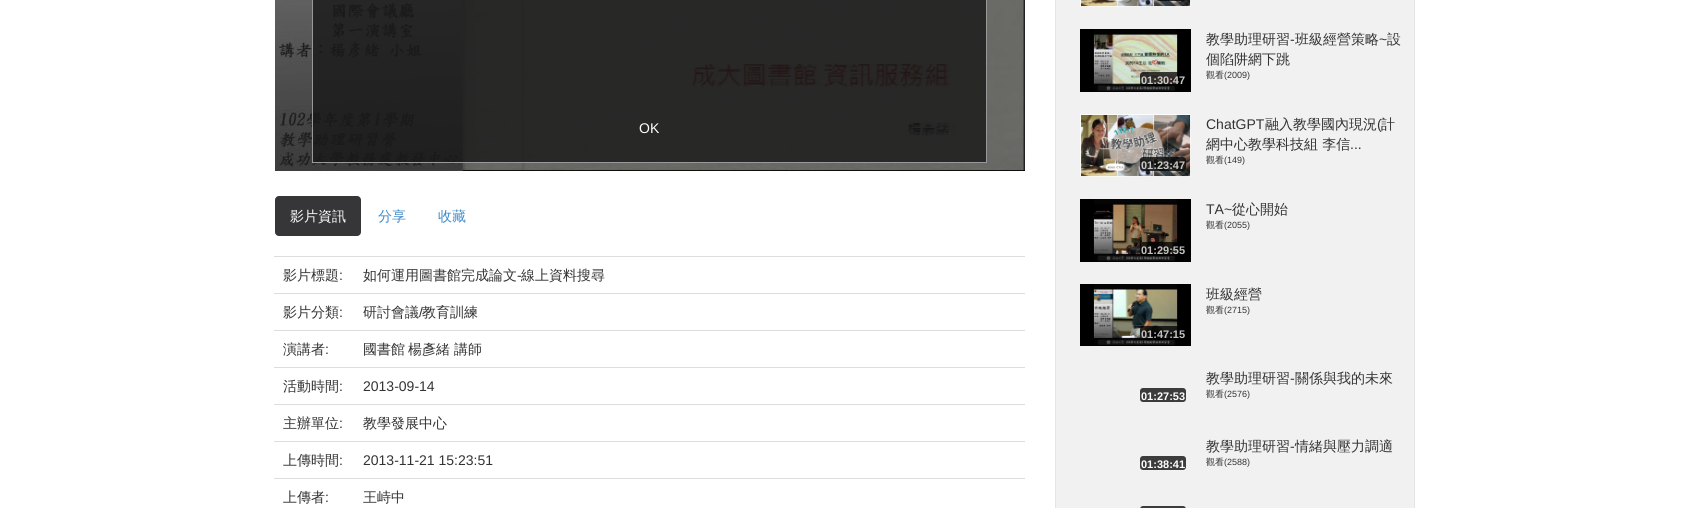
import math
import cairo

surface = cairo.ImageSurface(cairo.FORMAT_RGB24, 1689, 508)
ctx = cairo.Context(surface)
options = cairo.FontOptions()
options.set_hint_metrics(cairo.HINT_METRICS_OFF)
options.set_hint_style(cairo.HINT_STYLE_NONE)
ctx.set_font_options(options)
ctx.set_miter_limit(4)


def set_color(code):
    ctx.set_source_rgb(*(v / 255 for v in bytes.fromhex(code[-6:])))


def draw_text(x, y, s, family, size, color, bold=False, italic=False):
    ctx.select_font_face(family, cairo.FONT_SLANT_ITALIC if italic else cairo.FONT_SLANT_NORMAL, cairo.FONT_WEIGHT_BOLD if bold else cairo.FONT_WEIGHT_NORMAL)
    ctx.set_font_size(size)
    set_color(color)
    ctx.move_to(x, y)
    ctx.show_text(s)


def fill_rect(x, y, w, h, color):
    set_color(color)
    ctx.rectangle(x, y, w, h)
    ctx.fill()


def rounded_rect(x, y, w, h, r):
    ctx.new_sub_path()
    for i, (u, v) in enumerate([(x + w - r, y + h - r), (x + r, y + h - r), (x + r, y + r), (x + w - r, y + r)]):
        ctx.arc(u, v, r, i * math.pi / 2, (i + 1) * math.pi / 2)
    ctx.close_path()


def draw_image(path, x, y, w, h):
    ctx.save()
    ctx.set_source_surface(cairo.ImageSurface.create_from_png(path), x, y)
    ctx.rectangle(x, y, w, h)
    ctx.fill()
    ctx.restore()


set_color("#ffffff")
ctx.paint()
draw_image("assets/img1.png", 275, 0, 750, 171)
ctx.set_source_rgba(0.094, 0.094, 0.094, 0.8)
ctx.rectangle(312.5, -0.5, 674, 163)
ctx.fill_preserve()
set_color("#999999")
ctx.set_line_width(1)
ctx.stroke()
draw_text(639, 133, "OK", "Liberation Sans", 14, "#ffffff")
set_color("#363638")
rounded_rect(275, 196, 86, 40, 4)
ctx.fill()
draw_text(290, 221, "影片資訊", "WenQuanYi Zen Hei Medium", 14, "#ffffff")
draw_text(378, 221, "分享", "WenQuanYi Zen Hei Medium", 14, "#428bca")
draw_text(438, 221, "收藏", "WenQuanYi Zen Hei Medium", 14, "#428bca")
draw_text(283, 280, "影片標題", "WenQuanYi Zen Hei Medium", 14, "#333333")
draw_text(339, 280, ":", "Liberation Sans", 14, "#333333")
fill_rect(274, 256, 751, 1, "#dddddd")
draw_text(363, 280, "如何運用圖書館完成論文", "WenQuanYi Zen Hei Medium", 14, "#333333")
draw_text(517, 280, "-", "Liberation Sans", 14, "#333333")
draw_text(521, 280, "線上資料搜尋", "WenQuanYi Zen Hei Medium", 14, "#333333")
draw_text(283, 317, "影片分類", "WenQuanYi Zen Hei Medium", 14, "#333333")
draw_text(339, 317, ":", "Liberation Sans", 14, "#333333")
fill_rect(274, 293, 751, 1, "#dddddd")
draw_text(363, 317, "研討會議", "WenQuanYi Zen Hei Medium", 14, "#333333")
draw_text(419, 317, "/", "Liberation Sans", 14, "#333333")
draw_text(422, 317, "教育訓練", "WenQuanYi Zen Hei Medium", 14, "#333333")
draw_text(283, 354, "演講者", "WenQuanYi Zen Hei Medium", 14, "#333333")
draw_text(325, 354, ":", "Liberation Sans", 14, "#333333")
fill_rect(274, 330, 751, 1, "#dddddd")
draw_text(363, 354, "國書館", "WenQuanYi Zen Hei Medium", 14, "#333333")
draw_text(408, 354, "楊彥緒", "WenQuanYi Zen Hei Medium", 14, "#333333")
draw_text(454, 354, "講師", "WenQuanYi Zen Hei Medium", 14, "#333333")
draw_text(283, 391, "活動時間", "WenQuanYi Zen Hei Medium", 14, "#333333")
draw_text(339, 391, ":", "Liberation Sans", 14, "#333333")
fill_rect(274, 367, 751, 1, "#dddddd")
draw_text(363, 391, "2013-09-14", "Liberation Sans", 14, "#333333")
draw_text(283, 428, "主辦單位", "WenQuanYi Zen Hei Medium", 14, "#333333")
draw_text(339, 428, ":", "Liberation Sans", 14, "#333333")
fill_rect(274, 404, 751, 1, "#dddddd")
draw_text(363, 428, "教學發展中心", "WenQuanYi Zen Hei Medium", 14, "#333333")
draw_text(283, 465, "上傳時間", "WenQuanYi Zen Hei Medium", 14, "#333333")
draw_text(339, 465, ":", "Liberation Sans", 14, "#333333")
fill_rect(274, 441, 751, 1, "#dddddd")
draw_text(363, 465, "2013-11-21 15:23:51", "Liberation Sans", 14, "#333333")
draw_text(283, 502, "上傳者", "WenQuanYi Zen Hei Medium", 14, "#333333")
draw_text(325, 502, ":", "Liberation Sans", 14, "#333333")
fill_rect(274, 478, 751, 1, "#dddddd")
draw_text(363, 502, "王峙中", "WenQuanYi Zen Hei Medium", 14, "#333333")
set_color("#f1f1f1")
ctx.rectangle(1055.5, -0.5, 359, 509)
ctx.fill_preserve()
set_color("#e5e5e5")
ctx.stroke()
draw_image("assets/img2.png", 1080, 0, 111, 7)
ctx.set_source_rgba(0, 0, 0, 0.75)
rounded_rect(1156, -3, 30, 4, 3)
ctx.fill()
draw_image("assets/img3.png", 1080, 29, 111, 63)
rounded_rect(1140, 72, 46, 14, 3)
ctx.fill()
draw_text(1141, 84, "01:30:47", "Liberation Sans", 11, "#c9c9c8", bold=True)
draw_text(1206, 44, "教學助理研習", "WenQuanYi Zen Hei Medium", 14, "#333333")
draw_text(1290, 44, "-", "Liberation Sans", 14, "#333333")
draw_text(1295, 44, "班級經營策略", "WenQuanYi Zen Hei Medium", 14, "#333333")
draw_text(1379, 44, "~", "Liberation Sans", 14, "#333333")
draw_text(1387, 44, "設", "WenQuanYi Zen Hei Medium", 14, "#333333")
draw_text(1206, 64, "個陷阱網下跳", "WenQuanYi Zen Hei Medium", 14, "#333333")
draw_text(1206, 78, "觀看", "WenQuanYi Zen Hei Medium", 9, "#333333")
draw_text(1224, 78, "(2009)", "Liberation Sans", 9, "#333333")
draw_image("assets/img4.png", 1080, 114, 111, 63)
ctx.set_source_rgba(0, 0, 0, 0.75)
rounded_rect(1140, 157, 46, 14, 3)
ctx.fill()
draw_text(1141, 169, "01:23:47", "Liberation Sans", 11, "#c9c9c8", bold=True)
draw_text(1206, 129, "ChatGPT", "Liberation Sans", 14, "#333333")
draw_text(1265, 129, "融入教學國內現況", "WenQuanYi Zen Hei Medium", 14, "#333333")
draw_text(1377, 129, "(", "Liberation Sans", 14, "#333333")
draw_text(1381, 129, "計", "WenQuanYi Zen Hei Medium", 14, "#333333")
draw_text(1206, 149, "網中心教學科技組 李信", "WenQuanYi Zen Hei Medium", 14, "#333333")
draw_text(1350, 149, "...", "Liberation Sans", 14, "#333333")
draw_text(1206, 163, "觀看", "WenQuanYi Zen Hei Medium", 9, "#333333")
draw_text(1224, 163, "(149)", "Liberation Sans", 9, "#333333")
draw_text(1206, 214, "TA~", "Liberation Sans", 14, "#333333")
draw_text(1232, 214, "從心開始", "WenQuanYi Zen Hei Medium", 14, "#333333")
draw_text(1206, 228, "觀看", "WenQuanYi Zen Hei Medium", 9, "#333333")
draw_text(1224, 228, "(2055)", "Liberation Sans", 9, "#333333")
draw_image("assets/img5.png", 1080, 199, 111, 63)
ctx.set_source_rgba(0, 0, 0, 0.75)
rounded_rect(1140, 242, 46, 14, 3)
ctx.fill()
draw_text(1141, 254, "01:29:55", "Liberation Sans", 11, "#c3c2c2", bold=True)
draw_text(1206, 299, "班級經營", "WenQuanYi Zen Hei Medium", 14, "#333333")
draw_text(1206, 313, "觀看", "WenQuanYi Zen Hei Medium", 9, "#333333")
draw_text(1224, 313, "(2715)", "Liberation Sans", 9, "#333333")
draw_image("assets/img6.png", 1080, 284, 111, 62)
ctx.set_source_rgba(0, 0, 0, 0.75)
rounded_rect(1140, 326, 46, 14, 3)
ctx.fill()
draw_text(1141, 338, "01:47:15", "Liberation Sans", 11, "#c3c2c2", bold=True)
set_color("#3c3c3c")
rounded_rect(1140, 388, 46, 14, 3)
ctx.fill()
draw_text(1141, 400, "01:27:53", "Liberation Sans", 11, "#ffffff", bold=True)
draw_text(1206, 383, "教學助理研習", "WenQuanYi Zen Hei Medium", 14, "#333333")
draw_text(1290, 383, "-", "Liberation Sans", 14, "#333333")
draw_text(1295, 383, "關係與我的未來", "WenQuanYi Zen Hei Medium", 14, "#333333")
draw_text(1206, 397, "觀看", "WenQuanYi Zen Hei Medium", 9, "#333333")
draw_text(1224, 397, "(2576)", "Liberation Sans", 9, "#333333")
set_color("#3c3c3c")
rounded_rect(1140, 456, 46, 14, 3)
ctx.fill()
draw_text(1141, 468, "01:38:41", "Liberation Sans", 11, "#ffffff", bold=True)
draw_text(1206, 451, "教學助理研習", "WenQuanYi Zen Hei Medium", 14, "#333333")
draw_text(1290, 451, "-", "Liberation Sans", 14, "#333333")
draw_text(1295, 451, "情緒與壓力調適", "WenQuanYi Zen Hei Medium", 14, "#333333")
draw_text(1206, 465, "觀看", "WenQuanYi Zen Hei Medium", 9, "#333333")
draw_text(1224, 465, "(2588)", "Liberation Sans", 9, "#333333")
set_color("#3c3c3c")
rounded_rect(1140, 506, 46, 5, 3)
ctx.fill()
surface.write_to_png("output.png")
